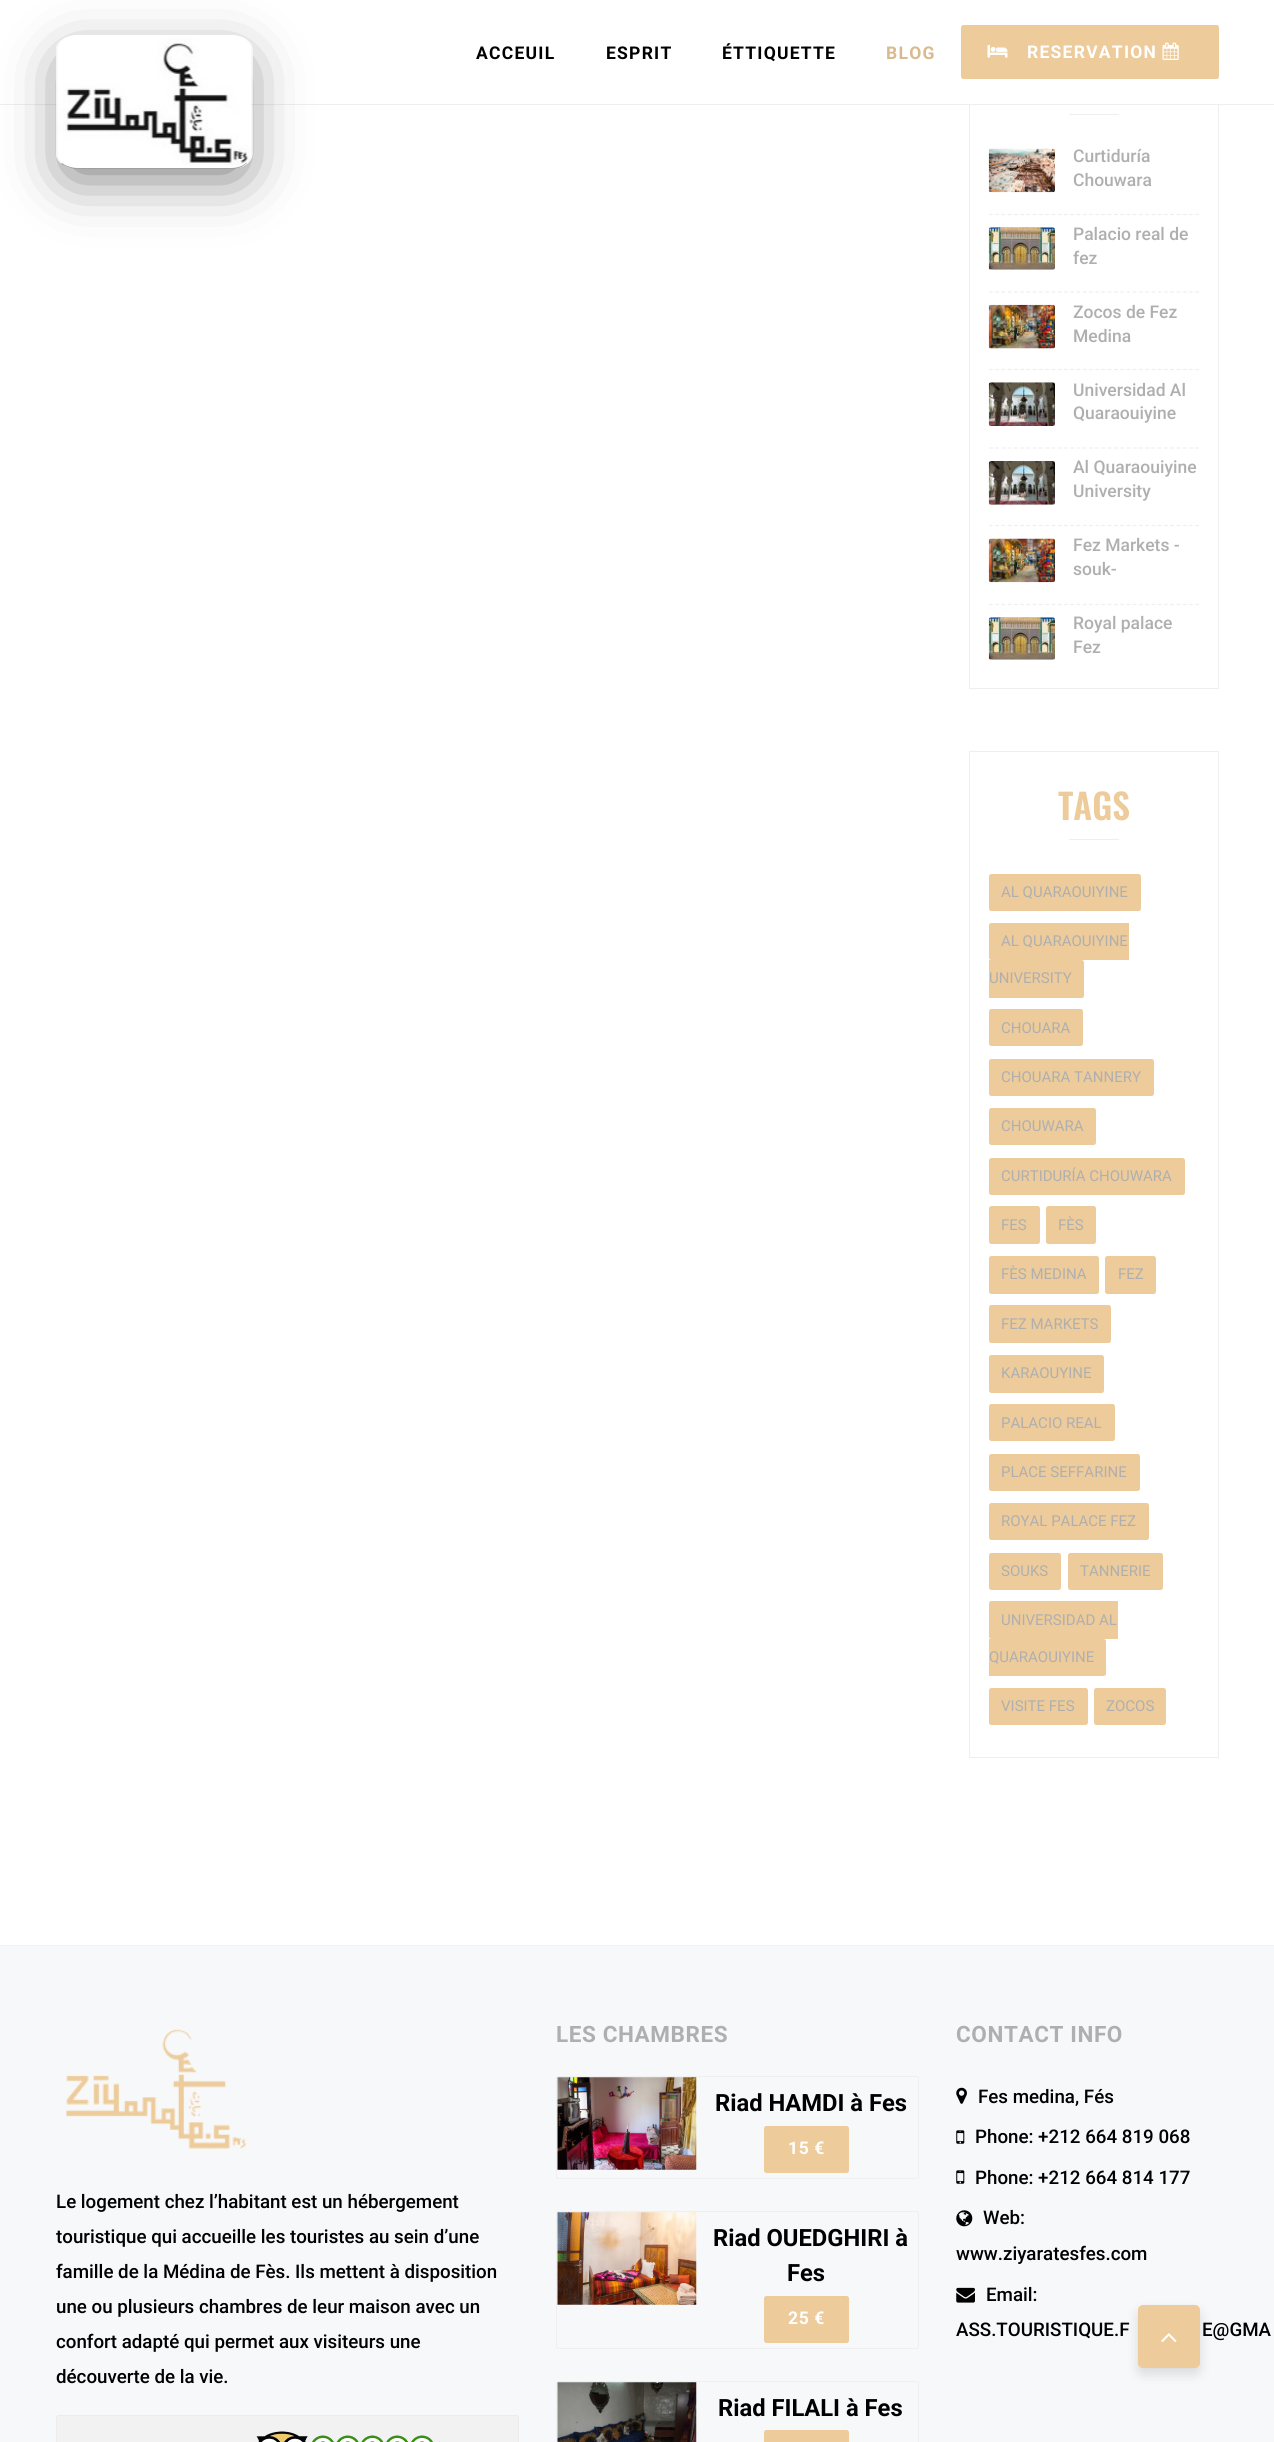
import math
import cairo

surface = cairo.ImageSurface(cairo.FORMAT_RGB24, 1274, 2442)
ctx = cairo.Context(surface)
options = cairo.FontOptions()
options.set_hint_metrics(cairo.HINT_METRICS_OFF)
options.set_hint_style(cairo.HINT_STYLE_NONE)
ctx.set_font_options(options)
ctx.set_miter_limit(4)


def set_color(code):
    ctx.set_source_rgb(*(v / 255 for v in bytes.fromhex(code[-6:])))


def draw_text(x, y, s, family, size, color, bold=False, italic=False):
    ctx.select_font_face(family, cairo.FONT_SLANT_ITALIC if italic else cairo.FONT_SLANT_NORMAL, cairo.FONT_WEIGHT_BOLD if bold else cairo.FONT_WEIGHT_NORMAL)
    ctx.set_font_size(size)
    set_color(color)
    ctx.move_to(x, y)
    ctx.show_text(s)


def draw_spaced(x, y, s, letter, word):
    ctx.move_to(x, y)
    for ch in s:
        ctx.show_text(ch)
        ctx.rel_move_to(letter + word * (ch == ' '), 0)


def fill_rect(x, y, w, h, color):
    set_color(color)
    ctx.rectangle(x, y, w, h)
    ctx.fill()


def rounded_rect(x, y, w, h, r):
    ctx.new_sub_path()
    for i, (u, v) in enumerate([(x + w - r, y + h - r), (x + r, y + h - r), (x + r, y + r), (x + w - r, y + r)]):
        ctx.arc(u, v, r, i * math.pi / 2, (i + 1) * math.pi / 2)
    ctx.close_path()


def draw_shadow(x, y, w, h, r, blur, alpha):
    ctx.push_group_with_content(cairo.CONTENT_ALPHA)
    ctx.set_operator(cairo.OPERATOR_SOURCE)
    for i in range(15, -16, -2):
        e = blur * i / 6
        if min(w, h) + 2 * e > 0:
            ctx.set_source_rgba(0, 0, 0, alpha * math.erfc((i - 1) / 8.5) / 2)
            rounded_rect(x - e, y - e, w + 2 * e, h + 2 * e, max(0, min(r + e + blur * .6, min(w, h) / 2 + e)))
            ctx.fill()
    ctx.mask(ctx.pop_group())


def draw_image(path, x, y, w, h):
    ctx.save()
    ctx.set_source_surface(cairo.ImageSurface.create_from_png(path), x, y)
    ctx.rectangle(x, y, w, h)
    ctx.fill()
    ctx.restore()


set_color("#ffffff")
ctx.paint()
ctx.rectangle(969.5, 28.5, 249, 660)
set_color("#efefef")
ctx.set_line_width(1)
ctx.stroke()
fill_rect(969, 28, 250, 76, "#ffffff")
fill_rect(0, 104, 1274, 1, "#efefef")
ctx.save()
ctx.set_fill_rule(cairo.FILL_RULE_EVEN_ODD)
ctx.new_path()
ctx.move_to(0, 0)
ctx.line_to(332, 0)
ctx.line_to(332, 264)
ctx.line_to(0, 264)
ctx.close_path()
ctx.move_to(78, 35)
ctx.line_to(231, 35)
ctx.curve_to(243, 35, 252.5, 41.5, 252.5, 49.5)
ctx.line_to(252.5, 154)
ctx.curve_to(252.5, 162, 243, 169, 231, 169)
ctx.line_to(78, 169)
ctx.curve_to(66, 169, 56, 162, 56, 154)
ctx.line_to(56, 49.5)
ctx.curve_to(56, 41.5, 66, 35, 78, 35)
ctx.close_path()
ctx.clip()
set_color("#000000")
draw_shadow(71, 66, 167, 104, 0, 31, 0.63)
ctx.restore()
ctx.set_source_rgba(0.906, 0.906, 0.906, 0.48)
ctx.new_path()
ctx.move_to(252, 50)
ctx.curve_to(252, 42, 243, 35, 231, 35)
ctx.curve_to(242, 35, 251, 42, 251, 50)
ctx.line_to(251, 154)
ctx.curve_to(251, 157, 249, 160, 246, 163)
ctx.line_to(247, 163)
ctx.curve_to(250, 161, 252, 158, 252, 154)
ctx.close_path()
ctx.fill()
ctx.set_source_rgba(0.569, 0.553, 0.553, 0.85)
ctx.new_path()
ctx.move_to(62, 163)
ctx.curve_to(66, 166, 72, 168, 78, 168)
ctx.line_to(231, 168)
ctx.curve_to(237, 168, 243, 166, 246, 163)
ctx.line_to(247, 163)
ctx.curve_to(244, 166, 240, 168, 235, 169)
ctx.line_to(74, 169)
ctx.curve_to(69, 168, 65, 166, 61, 164)
ctx.close_path()
ctx.fill()
ctx.set_source_rgba(0.906, 0.906, 0.906, 0.48)
ctx.new_path()
ctx.move_to(78, 35)
ctx.curve_to(67, 35, 58, 42, 58, 50)
ctx.line_to(58, 154)
ctx.curve_to(58, 157, 60, 160, 62, 163)
ctx.line_to(61, 164)
ctx.curve_to(59, 162, 57, 159, 56, 156)
ctx.line_to(56, 48)
ctx.curve_to(58, 41, 67, 35, 78, 35)
ctx.close_path()
ctx.fill()
draw_image("assets/img1.png", 57, 37, 195, 128)
ctx.select_font_face("Roboto", cairo.FONT_SLANT_NORMAL, cairo.FONT_WEIGHT_BOLD)
ctx.set_font_size(17.5)
set_color("#000000")
draw_spaced(476, 59, "ACCEUIL", 1.25, 0)
draw_spaced(606, 59, "ESPRIT", 1.25, 0)
draw_spaced(722, 59, "ÉTTIQUETTE", 1.25, 0)
set_color("#d8ba8e")
draw_spaced(886, 59, "BLOG", 1.25, 0)
set_color("#edcb9a")
rounded_rect(961, 25, 258, 54, 2.5)
ctx.fill()
draw_image("assets/img2.png", 987, 45, 21, 13)
set_color("#ffffff")
draw_spaced(1027, 58, "RESERVATION", 1.25, 0)
draw_image("assets/img3.png", 1162, 42, 17, 18)
fill_rect(1069, 114, 50, 1, "#efefef")
ctx.new_path()
ctx.move_to(989, 214.5)
ctx.line_to(1199, 214.5)
ctx.set_line_width(1.2)
ctx.set_dash([3.75, 2.5])
ctx.stroke()
draw_image("assets/img4.png", 988, 148, 67, 45)
draw_text(1073, 162, "Curtiduría", "Roboto Medium", 17.5, "#afafaf")
draw_text(1073, 186, "Chouwara", "Roboto Medium", 17.5, "#afafaf")
ctx.new_path()
ctx.move_to(989, 292)
ctx.line_to(1199, 292)
set_color("#efefef")
ctx.stroke()
draw_image("assets/img5.png", 988, 227, 67, 43)
draw_text(1073, 240, "Palacio real de", "Roboto Medium", 17.5, "#afafaf")
draw_text(1073, 264, "fez", "Roboto Medium", 17.5, "#afafaf")
ctx.new_path()
ctx.move_to(989, 369.5)
ctx.line_to(1199, 369.5)
set_color("#efefef")
ctx.stroke()
draw_image("assets/img6.png", 988, 304, 67, 45)
draw_text(1073, 318, "Zocos de Fez", "Roboto Medium", 17.5, "#afafaf")
draw_text(1073, 342, "Medina", "Roboto Medium", 17.5, "#afafaf")
ctx.new_path()
ctx.move_to(989, 448)
ctx.line_to(1199, 448)
set_color("#efefef")
ctx.stroke()
draw_image("assets/img7.png", 988, 382, 67, 44)
draw_text(1073, 396, "Universidad Al", "Roboto Medium", 17.5, "#afafaf")
draw_text(1073, 419, "Quaraouiyine", "Roboto Medium", 17.5, "#afafaf")
ctx.new_path()
ctx.move_to(989, 525.5)
ctx.line_to(1199, 525.5)
set_color("#efefef")
ctx.stroke()
draw_image("assets/img8.png", 988, 461, 67, 44)
draw_text(1073, 473, "Al Quaraouiyine", "Roboto Medium", 17.5, "#afafaf")
draw_text(1073, 497, "University", "Roboto Medium", 17.5, "#afafaf")
ctx.new_path()
ctx.move_to(989, 604.5)
ctx.line_to(1199, 604.5)
set_color("#efefef")
ctx.stroke()
draw_image("assets/img9.png", 988, 538, 67, 45)
draw_text(1073, 551, "Fez Markets -", "Roboto Medium", 17.5, "#afafaf")
draw_text(1073, 575, "souk-", "Roboto Medium", 17.5, "#afafaf")
draw_image("assets/img5.png", 988, 617, 67, 43)
draw_text(1073, 629, "Royal palace", "Roboto Medium", 17.5, "#afafaf")
draw_text(1073, 653, "Fez", "Roboto Medium", 17.5, "#afafaf")
ctx.rectangle(969.5, 751.5, 249, 1006)
set_color("#efefef")
ctx.set_line_width(1)
ctx.set_dash([])
ctx.stroke()
draw_text(1058, 820, "TAGS", "Oswald SemiBold", 35, "#edcb9a")
fill_rect(1069, 839, 50, 1, "#efefef")
set_color("#edcb9a")
rounded_rect(989, 874, 152, 37, 2.5)
ctx.fill()
draw_text(1001, 897, "AL QUARAOUIYINE", "Roboto", 15, "#afafaf")
set_color("#edcb9a")
ctx.new_path()
ctx.move_to(991.5, 923)
ctx.line_to(1129, 923)
ctx.line_to(1129, 960)
ctx.line_to(991.5, 960)
ctx.curve_to(990, 960, 989, 959, 989, 957.5)
ctx.line_to(989, 925.5)
ctx.curve_to(989, 924, 990, 923, 991.5, 923)
ctx.close_path()
ctx.fill()
draw_text(1001, 946, "AL QUARAOUIYINE", "Roboto", 15, "#afafaf")
set_color("#edcb9a")
ctx.new_path()
ctx.move_to(989, 960)
ctx.line_to(1081.5, 960)
ctx.curve_to(1083, 960, 1084, 961, 1084, 962.5)
ctx.line_to(1084, 995.5)
ctx.curve_to(1084, 997, 1083, 998, 1081.5, 998)
ctx.line_to(989, 998)
ctx.close_path()
ctx.fill()
draw_text(989, 983, "UNIVERSITY", "Roboto", 15, "#afafaf")
set_color("#edcb9a")
rounded_rect(989, 1009, 94, 37, 2.5)
ctx.fill()
draw_text(1001, 1033, "CHOUARA", "Roboto", 15, "#afafaf")
set_color("#edcb9a")
rounded_rect(989, 1059, 165, 37, 2.5)
ctx.fill()
draw_text(1001, 1082, "CHOUARA TANNERY", "Roboto", 15, "#afafaf")
set_color("#edcb9a")
rounded_rect(989, 1108, 107, 37, 2.5)
ctx.fill()
draw_text(1001, 1131, "CHOUWARA", "Roboto", 15, "#afafaf")
set_color("#edcb9a")
rounded_rect(989, 1158, 196, 37, 2.5)
ctx.fill()
draw_text(1001, 1181, "CURTIDURÍA CHOUWARA", "Roboto", 15, "#afafaf")
set_color("#edcb9a")
rounded_rect(989, 1206, 51, 38, 2.5)
ctx.fill()
draw_text(1001, 1230, "FES", "Roboto", 15, "#afafaf")
set_color("#edcb9a")
rounded_rect(1046, 1206, 50, 38, 2.5)
ctx.fill()
draw_text(1058, 1230, "FÈS", "Roboto", 15, "#afafaf")
set_color("#edcb9a")
rounded_rect(989, 1256, 110, 38, 2.5)
ctx.fill()
draw_text(1001, 1279, "FÈS MEDINA", "Roboto", 15, "#afafaf")
set_color("#edcb9a")
rounded_rect(1105, 1256, 51, 38, 2.5)
ctx.fill()
draw_text(1118, 1279, "FEZ", "Roboto", 15, "#afafaf")
set_color("#edcb9a")
rounded_rect(989, 1305, 122, 38, 2.5)
ctx.fill()
draw_text(1001, 1329, "FEZ MARKETS", "Roboto", 15, "#afafaf")
set_color("#edcb9a")
rounded_rect(989, 1355, 115, 38, 2.5)
ctx.fill()
draw_text(1001, 1378, "KARAOUYINE", "Roboto", 15, "#afafaf")
set_color("#edcb9a")
rounded_rect(989, 1404, 126, 37, 2.5)
ctx.fill()
draw_text(1001, 1428, "PALACIO REAL", "Roboto", 15, "#afafaf")
set_color("#edcb9a")
rounded_rect(989, 1454, 151, 37, 2.5)
ctx.fill()
draw_text(1001, 1477, "PLACE SEFFARINE", "Roboto", 15, "#afafaf")
set_color("#edcb9a")
rounded_rect(989, 1503, 160, 37, 2.5)
ctx.fill()
draw_text(1001, 1526, "ROYAL PALACE FEZ", "Roboto", 15, "#afafaf")
set_color("#edcb9a")
rounded_rect(989, 1553, 72, 37, 2.5)
ctx.fill()
draw_text(1001, 1576, "SOUKS", "Roboto", 15, "#afafaf")
set_color("#edcb9a")
rounded_rect(1068, 1553, 95, 37, 2.5)
ctx.fill()
draw_text(1080, 1576, "TANNERIE", "Roboto", 15, "#afafaf")
set_color("#edcb9a")
ctx.new_path()
ctx.move_to(991.5, 1601)
ctx.line_to(1118, 1601)
ctx.line_to(1118, 1639)
ctx.line_to(991.5, 1639)
ctx.curve_to(990, 1639, 989, 1638, 989, 1636.5)
ctx.line_to(989, 1603.5)
ctx.curve_to(989, 1602, 990, 1601, 991.5, 1601)
ctx.close_path()
ctx.fill()
draw_text(1001, 1625, "UNIVERSIDAD AL", "Roboto", 15, "#afafaf")
set_color("#edcb9a")
ctx.new_path()
ctx.move_to(989, 1639)
ctx.line_to(1103.5, 1639)
ctx.curve_to(1105, 1639, 1106, 1640, 1106, 1641.5)
ctx.line_to(1106, 1673.5)
ctx.curve_to(1106, 1675, 1105, 1676, 1103.5, 1676)
ctx.line_to(989, 1676)
ctx.close_path()
ctx.fill()
draw_text(989, 1662, "QUARAOUIYINE", "Roboto", 15, "#afafaf")
set_color("#edcb9a")
rounded_rect(989, 1688, 99, 37, 2.5)
ctx.fill()
draw_text(1001, 1711, "VISITE FES", "Roboto", 15, "#afafaf")
set_color("#edcb9a")
rounded_rect(1094, 1688, 72, 37, 2.5)
ctx.fill()
draw_text(1106, 1711, "ZOCOS", "Roboto", 15, "#afafaf")
fill_rect(0, 1946, 1274, 496, "#f7f8f9")
fill_rect(0, 1945, 1274, 1, "#f2f2f2")
draw_image("assets/img10.png", 66, 2029, 181, 120)
draw_text(56, 2208, "Le logement chez l’habitant est un hébergement", "Roboto Medium", 18.75, "#000000")
draw_text(56, 2243, "touristique qui accueille les touristes au sein d’une", "Roboto Medium", 18.75, "#000000")
draw_text(56, 2278, "famille de la Médina de Fès. Ils mettent à disposition", "Roboto Medium", 18.75, "#000000")
draw_text(56, 2313, "une ou plusieurs chambres de leur maison avec un", "Roboto Medium", 18.75, "#000000")
draw_text(56, 2348, "confort adapté qui permet aux visiteurs une", "Roboto Medium", 18.75, "#000000")
draw_text(56, 2383, "découverte de la vie.", "Roboto Medium", 18.75, "#000000")
set_color("#f2f2f2")
rounded_rect(56.5, 2415.5, 462, 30, 2)
ctx.fill_preserve()
set_color("#ececec")
ctx.stroke()
draw_image("assets/img11.png", 256, 2431, 184, 11)
ctx.select_font_face("Roboto", cairo.FONT_SLANT_NORMAL, cairo.FONT_WEIGHT_BOLD)
ctx.set_font_size(22.5)
set_color("#afafaf")
draw_spaced(556, 2042, "LES CHAMBRES", 0.6, 0)
rounded_rect(556.5, 2076.5, 362, 102, 2)
set_color("#efefef")
ctx.stroke()
draw_image("assets/img12.png", 557, 2077, 140, 93)
draw_text(715, 2111, "Riad HAMDI à Fes", "Roboto", 23.75, "#000000", bold=True)
set_color("#edcb9a")
rounded_rect(764, 2126, 85, 47, 2.5)
ctx.fill()
ctx.set_font_size(17.5)
set_color("#ffffff")
draw_spaced(788, 2154, "15 €", 0.6, 0)
rounded_rect(556.5, 2211.5, 362, 137, 2)
set_color("#efefef")
ctx.stroke()
draw_image("assets/img13.png", 557, 2212, 140, 93)
draw_text(713, 2246, "Riad OUEDGHIRI à", "Roboto", 23.75, "#000000", bold=True)
draw_text(787, 2281, "Fes", "Roboto", 23.75, "#000000", bold=True)
set_color("#edcb9a")
rounded_rect(764, 2296, 85, 47, 2.5)
ctx.fill()
ctx.set_font_size(17.5)
set_color("#ffffff")
draw_spaced(788, 2324, "25 €", 0.6, 0)
rounded_rect(556.5, 2381.5, 362, 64, 2)
set_color("#efefef")
ctx.stroke()
draw_image("assets/img14.png", 557, 2382, 140, 60)
draw_text(718, 2416, "Riad FILALI à Fes", "Roboto", 23.75, "#000000", bold=True)
set_color("#edcb9a")
rounded_rect(764, 2430, 85, 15, 2.5)
ctx.fill()
ctx.set_font_size(22.5)
set_color("#afafaf")
draw_spaced(956, 2042, "CONTACT INFO", 0.6, 0)
draw_image("assets/img15.png", 956, 2087, 11, 17)
draw_text(978, 2103, "Fes medina, Fés", "Roboto Medium", 18.75, "#000000")
draw_image("assets/img16.png", 956, 2130, 9, 14)
draw_text(975, 2143, "Phone: +212 664 819 068", "Roboto Medium", 18.75, "#000000")
draw_image("assets/img16.png", 956, 2170, 9, 14)
draw_text(975, 2184, "Phone: +212 664 814 177", "Roboto Medium", 18.75, "#000000")
draw_image("assets/img17.png", 956, 2210, 17, 17)
draw_text(983, 2224, "Web:", "Roboto Medium", 18.75, "#000000")
draw_text(956, 2260, "www.ziyaratesfes.com", "Roboto Medium", 18.75, "#000000")
draw_image("assets/img18.png", 956, 2287, 19, 16)
draw_text(986, 2301, "Email:", "Roboto Medium", 18.75, "#000000")
draw_text(956, 2336, "ASS.TOURISTIQUE.F", "Roboto Medium", 18.75, "#000000")
draw_text(1202, 2336, "E@GMA", "Roboto Medium", 18.75, "#000000")
set_color("#233238")
draw_shadow(1138, 2311, 62, 63, 5, 6, 0.15)
set_color("#edcb9a")
rounded_rect(1138, 2305, 62, 63, 5)
ctx.fill()
draw_image("assets/img19.png", 1161, 2333, 16, 9)
surface.write_to_png("output.png")
